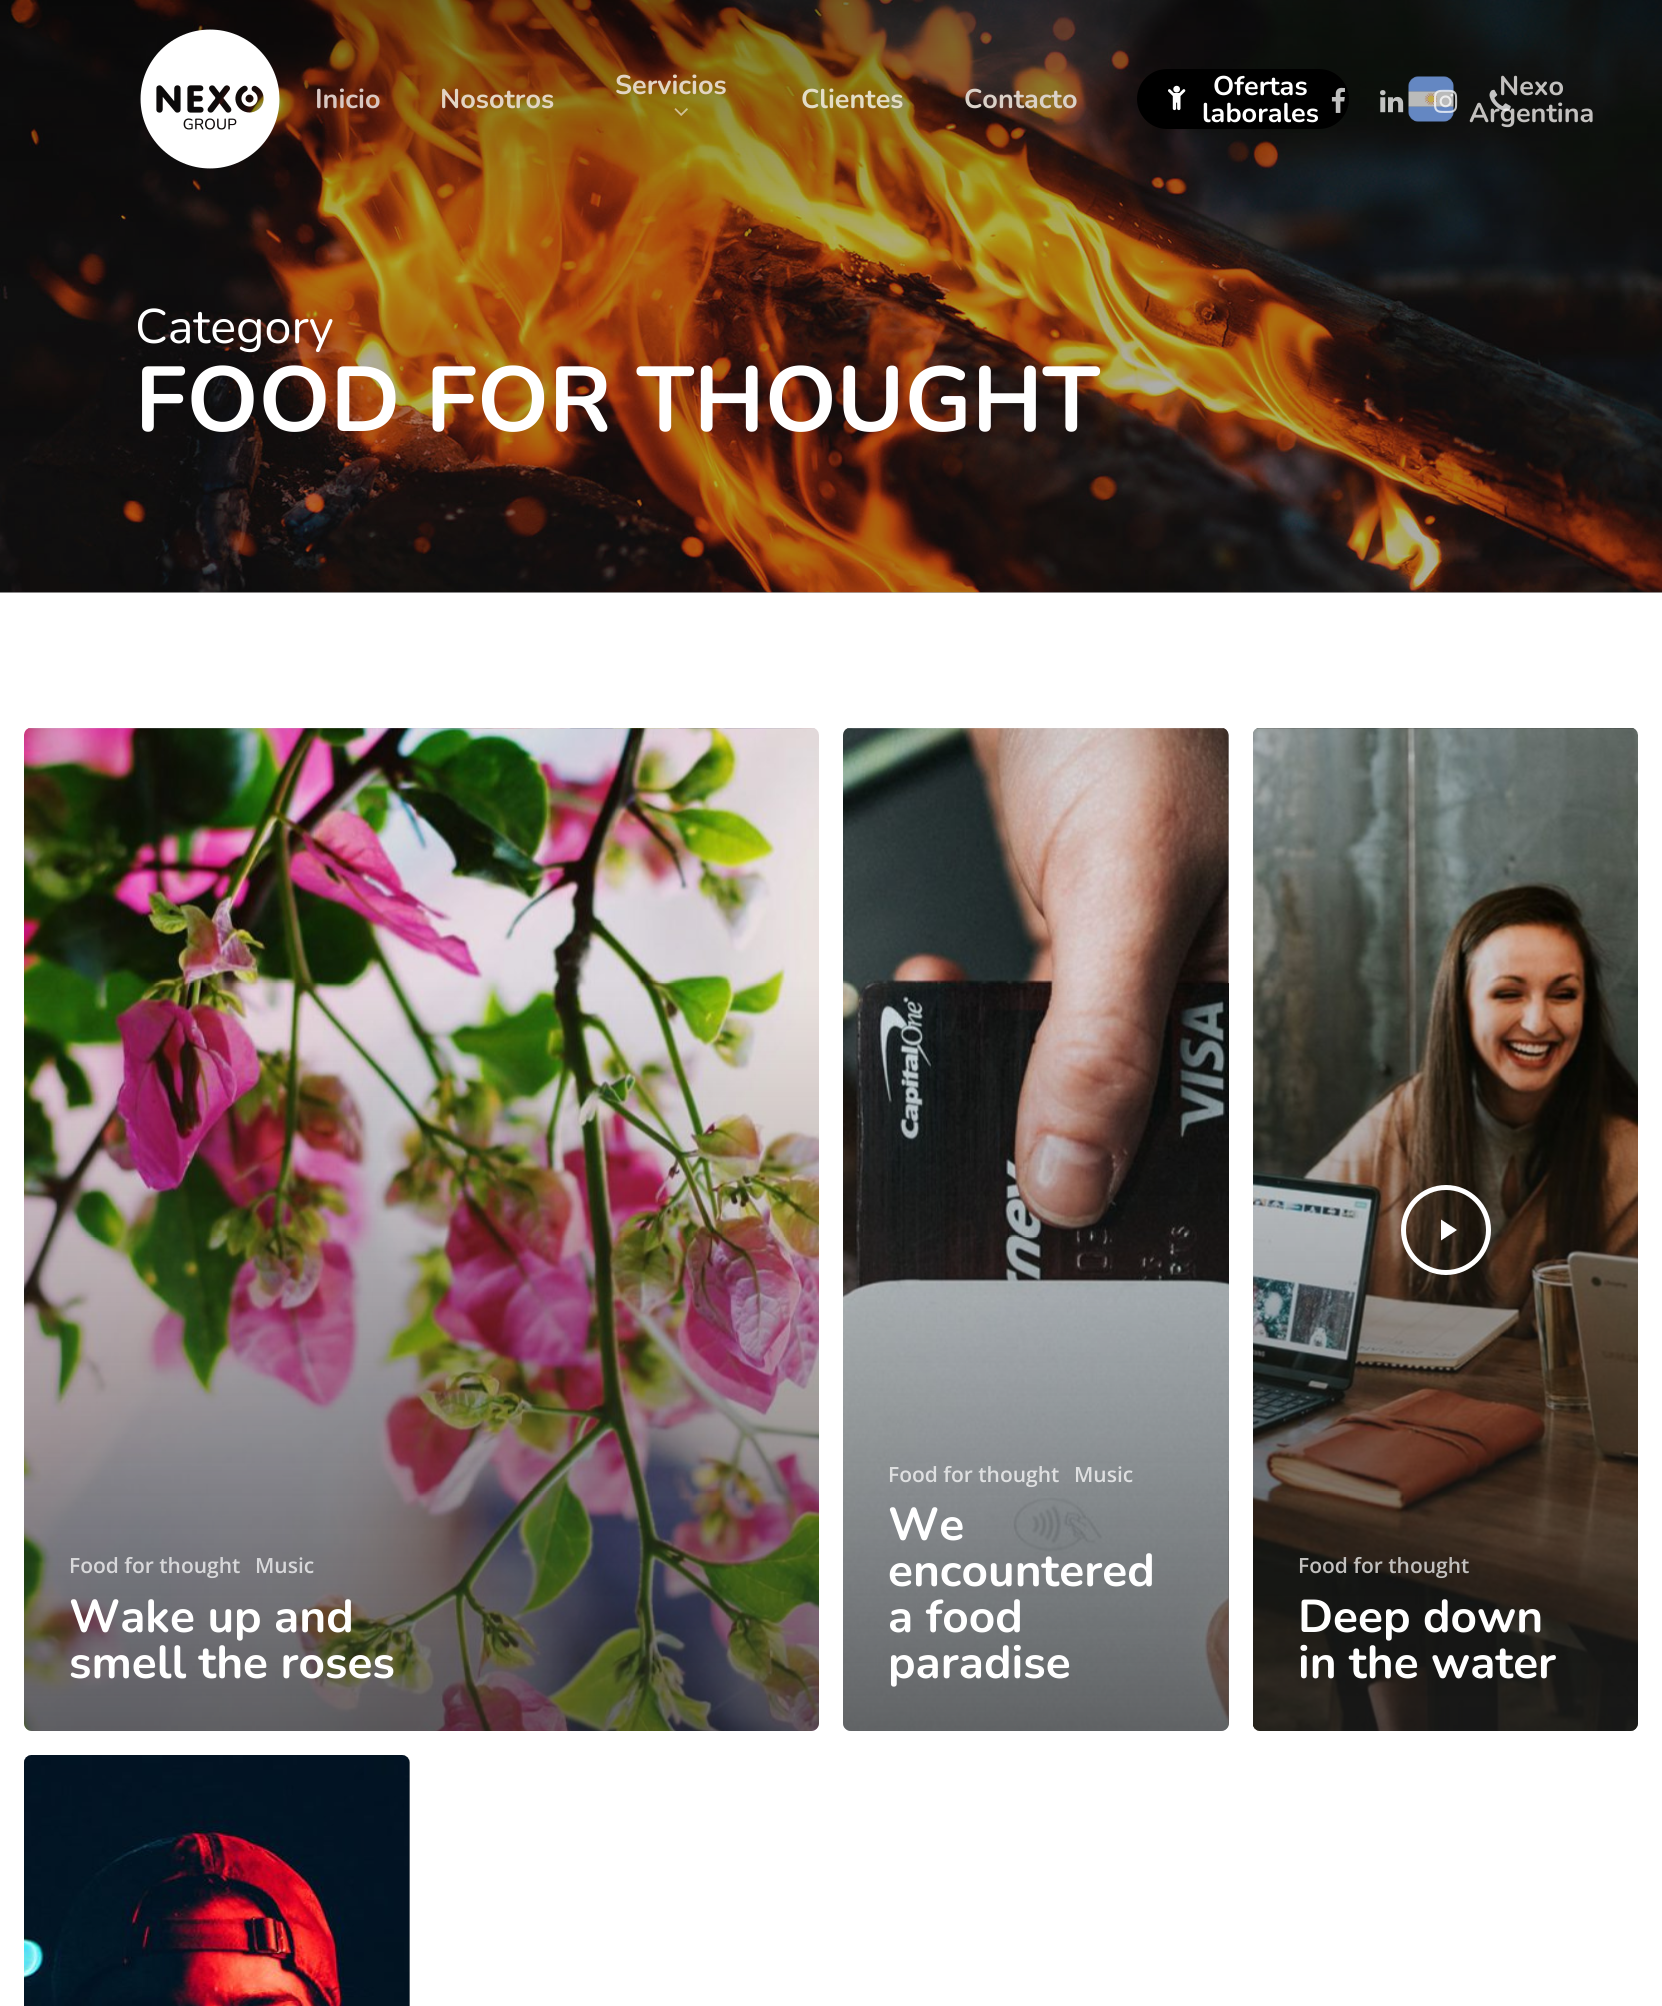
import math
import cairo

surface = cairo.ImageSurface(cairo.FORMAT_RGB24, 1662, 2006)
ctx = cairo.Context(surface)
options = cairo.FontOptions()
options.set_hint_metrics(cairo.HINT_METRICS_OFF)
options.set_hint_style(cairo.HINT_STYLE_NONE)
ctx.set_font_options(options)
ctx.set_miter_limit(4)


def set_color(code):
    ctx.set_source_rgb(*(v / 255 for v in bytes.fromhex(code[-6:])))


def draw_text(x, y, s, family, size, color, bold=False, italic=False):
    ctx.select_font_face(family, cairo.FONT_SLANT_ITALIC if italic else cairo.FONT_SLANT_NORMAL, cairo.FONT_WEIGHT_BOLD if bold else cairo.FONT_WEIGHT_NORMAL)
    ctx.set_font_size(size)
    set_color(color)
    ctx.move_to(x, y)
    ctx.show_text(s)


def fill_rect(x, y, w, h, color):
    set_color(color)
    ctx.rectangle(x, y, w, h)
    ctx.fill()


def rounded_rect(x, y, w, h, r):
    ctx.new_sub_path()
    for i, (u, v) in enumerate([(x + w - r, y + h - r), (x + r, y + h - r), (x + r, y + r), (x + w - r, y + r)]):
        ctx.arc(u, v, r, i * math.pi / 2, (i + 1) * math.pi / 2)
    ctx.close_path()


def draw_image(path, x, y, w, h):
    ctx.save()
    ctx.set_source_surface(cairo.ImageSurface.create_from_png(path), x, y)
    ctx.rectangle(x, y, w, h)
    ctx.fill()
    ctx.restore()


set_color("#ffffff")
ctx.paint()
fill_rect(0, 592, 1662, 1, "#afafaf")
draw_image("assets/img9.png", 0, 0, 1662, 593)
draw_image("assets/img1.png", 140, 29, 140, 140)
draw_text(315, 108, "Inicio", "Nunito", 27, "#d8c7c2", bold=True)
draw_text(440, 108, "Nosotros", "Nunito", 27, "#e2d4c3", bold=True)
draw_text(615, 94, "Servicios", "Nunito", 27, "#e2d4c3", bold=True)
draw_image("assets/img2.png", 674, 108, 14, 8)
draw_text(801, 108, "Clientes", "Nunito", 27, "#e3dcc6", bold=True)
draw_text(964, 108, "Contacto", "Nunito", 27, "#dad1c8", bold=True)
set_color("#000000")
rounded_rect(1137, 69, 212, 60, 30)
ctx.fill()
draw_image("assets/img3.png", 1168, 85, 18, 26)
draw_text(1213, 95, "Ofertas", "Nunito", 27, "#ffffff", bold=True)
draw_text(1202, 122, "laborales", "Nunito", 27, "#ffffff", bold=True)
draw_image("assets/img4.png", 1408, 76, 46, 46)
draw_text(1499, 95, "Nexo", "Nunito", 27, "#c2c0be", bold=True)
draw_text(1469, 122, "Argentina", "Nunito", 27, "#c2c0be", bold=True)
draw_image("assets/img5.png", 1331, 87, 14, 26)
draw_image("assets/img6.png", 1380, 90, 24, 23)
draw_image("assets/img7.png", 1434, 89, 24, 24)
draw_image("assets/img8.png", 1489, 89, 22, 22)
draw_text(135, 343, "Category", "Nunito", 48.5, "#ffffff")
draw_text(135, 431, "FOOD FOR THOUGHT", "Nunito", 91.75, "#ffffff", bold=True)
draw_image("assets/img10.png", 24, 728, 795, 1003)
gradient = cairo.LinearGradient(424, 980, 424, 1736)
gradient.add_color_stop_rgba(0, 0.137, 0.137, 0.137, 0)
gradient.add_color_stop_rgba(1, 0.137, 0.137, 0.137, 0.65)
ctx.set_source(gradient)
ctx.new_path()
ctx.move_to(24, 980)
ctx.line_to(819, 980)
ctx.line_to(819, 1723)
ctx.curve_to(819, 1727.5, 815.5, 1731, 811, 1731)
ctx.line_to(32, 1731)
ctx.curve_to(27.5, 1731, 24, 1727.5, 24, 1723)
ctx.close_path()
ctx.fill()
draw_text(69, 1573, "Food for thought", "Open Sans SemiBold", 21, "#d8d8da")
draw_text(255, 1573, "Music", "Open Sans SemiBold", 21, "#d8d8da")
draw_text(69, 1632, "Wake up and", "Nunito", 46, "#ffffff", bold=True)
draw_text(69, 1678, "smell the roses", "Nunito", 46, "#ffffff", bold=True)
set_color("#b3b3b3")
rounded_rect(843, 728, 386, 1003, 8)
ctx.fill()
draw_image("assets/img11.png", 843, 728, 386, 1003)
gradient = cairo.LinearGradient(1037, 980, 1037, 1736)
gradient.add_color_stop_rgba(0, 0.137, 0.137, 0.137, 0)
gradient.add_color_stop_rgba(1, 0.137, 0.137, 0.137, 0.65)
ctx.set_source(gradient)
ctx.new_path()
ctx.move_to(843, 980)
ctx.line_to(1229, 980)
ctx.line_to(1229, 1723)
ctx.curve_to(1229, 1727.5, 1225.5, 1731, 1221, 1731)
ctx.line_to(851, 1731)
ctx.curve_to(846.5, 1731, 843, 1727.5, 843, 1723)
ctx.close_path()
ctx.fill()
draw_text(888, 1482, "Food for thought", "Open Sans SemiBold", 21, "#dedfe0")
draw_text(1074, 1482, "Music", "Open Sans SemiBold", 21, "#dedfe0")
draw_text(888, 1540, "We", "Nunito", 46, "#ffffff", bold=True)
draw_text(888, 1586, "encountered", "Nunito", 46, "#ffffff", bold=True)
draw_text(888, 1632, "a food", "Nunito", 46, "#ffffff", bold=True)
draw_text(888, 1678, "paradise", "Nunito", 46, "#ffffff", bold=True)
draw_image("assets/img12.png", 1253, 728, 385, 1003)
gradient = cairo.LinearGradient(1446, 980, 1446, 1736)
gradient.add_color_stop_rgba(0, 0.137, 0.137, 0.137, 0)
gradient.add_color_stop_rgba(1, 0.137, 0.137, 0.137, 0.65)
ctx.set_source(gradient)
ctx.new_path()
ctx.move_to(1253, 980)
ctx.line_to(1638, 980)
ctx.line_to(1638, 1723)
ctx.curve_to(1638, 1727.5, 1634.5, 1731, 1630, 1731)
ctx.line_to(1261, 1731)
ctx.curve_to(1256.5, 1731, 1253, 1727.5, 1253, 1723)
ctx.close_path()
ctx.fill()
set_color("#ffffff")
ctx.new_path()
ctx.move_to(1441, 1219.5)
ctx.line_to(1441, 1240.5)
ctx.line_to(1457, 1230)
ctx.close_path()
ctx.fill()
ctx.arc(1446, 1230, 42.5, 0, 2 * math.pi)
ctx.set_line_width(5)
ctx.stroke()
draw_text(1298, 1573, "Food for thought", "Open Sans SemiBold", 21, "#c2c0be")
draw_text(1298, 1632, "Deep down", "Nunito", 46, "#ffffff", bold=True)
draw_text(1298, 1678, "in the water", "Nunito", 46, "#ffffff", bold=True)
set_color("#b3b3b3")
rounded_rect(24, 1755, 386, 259, 8)
ctx.fill()
draw_image("assets/img13.png", 24, 1755, 386, 251)
surface.write_to_png("output.png")
